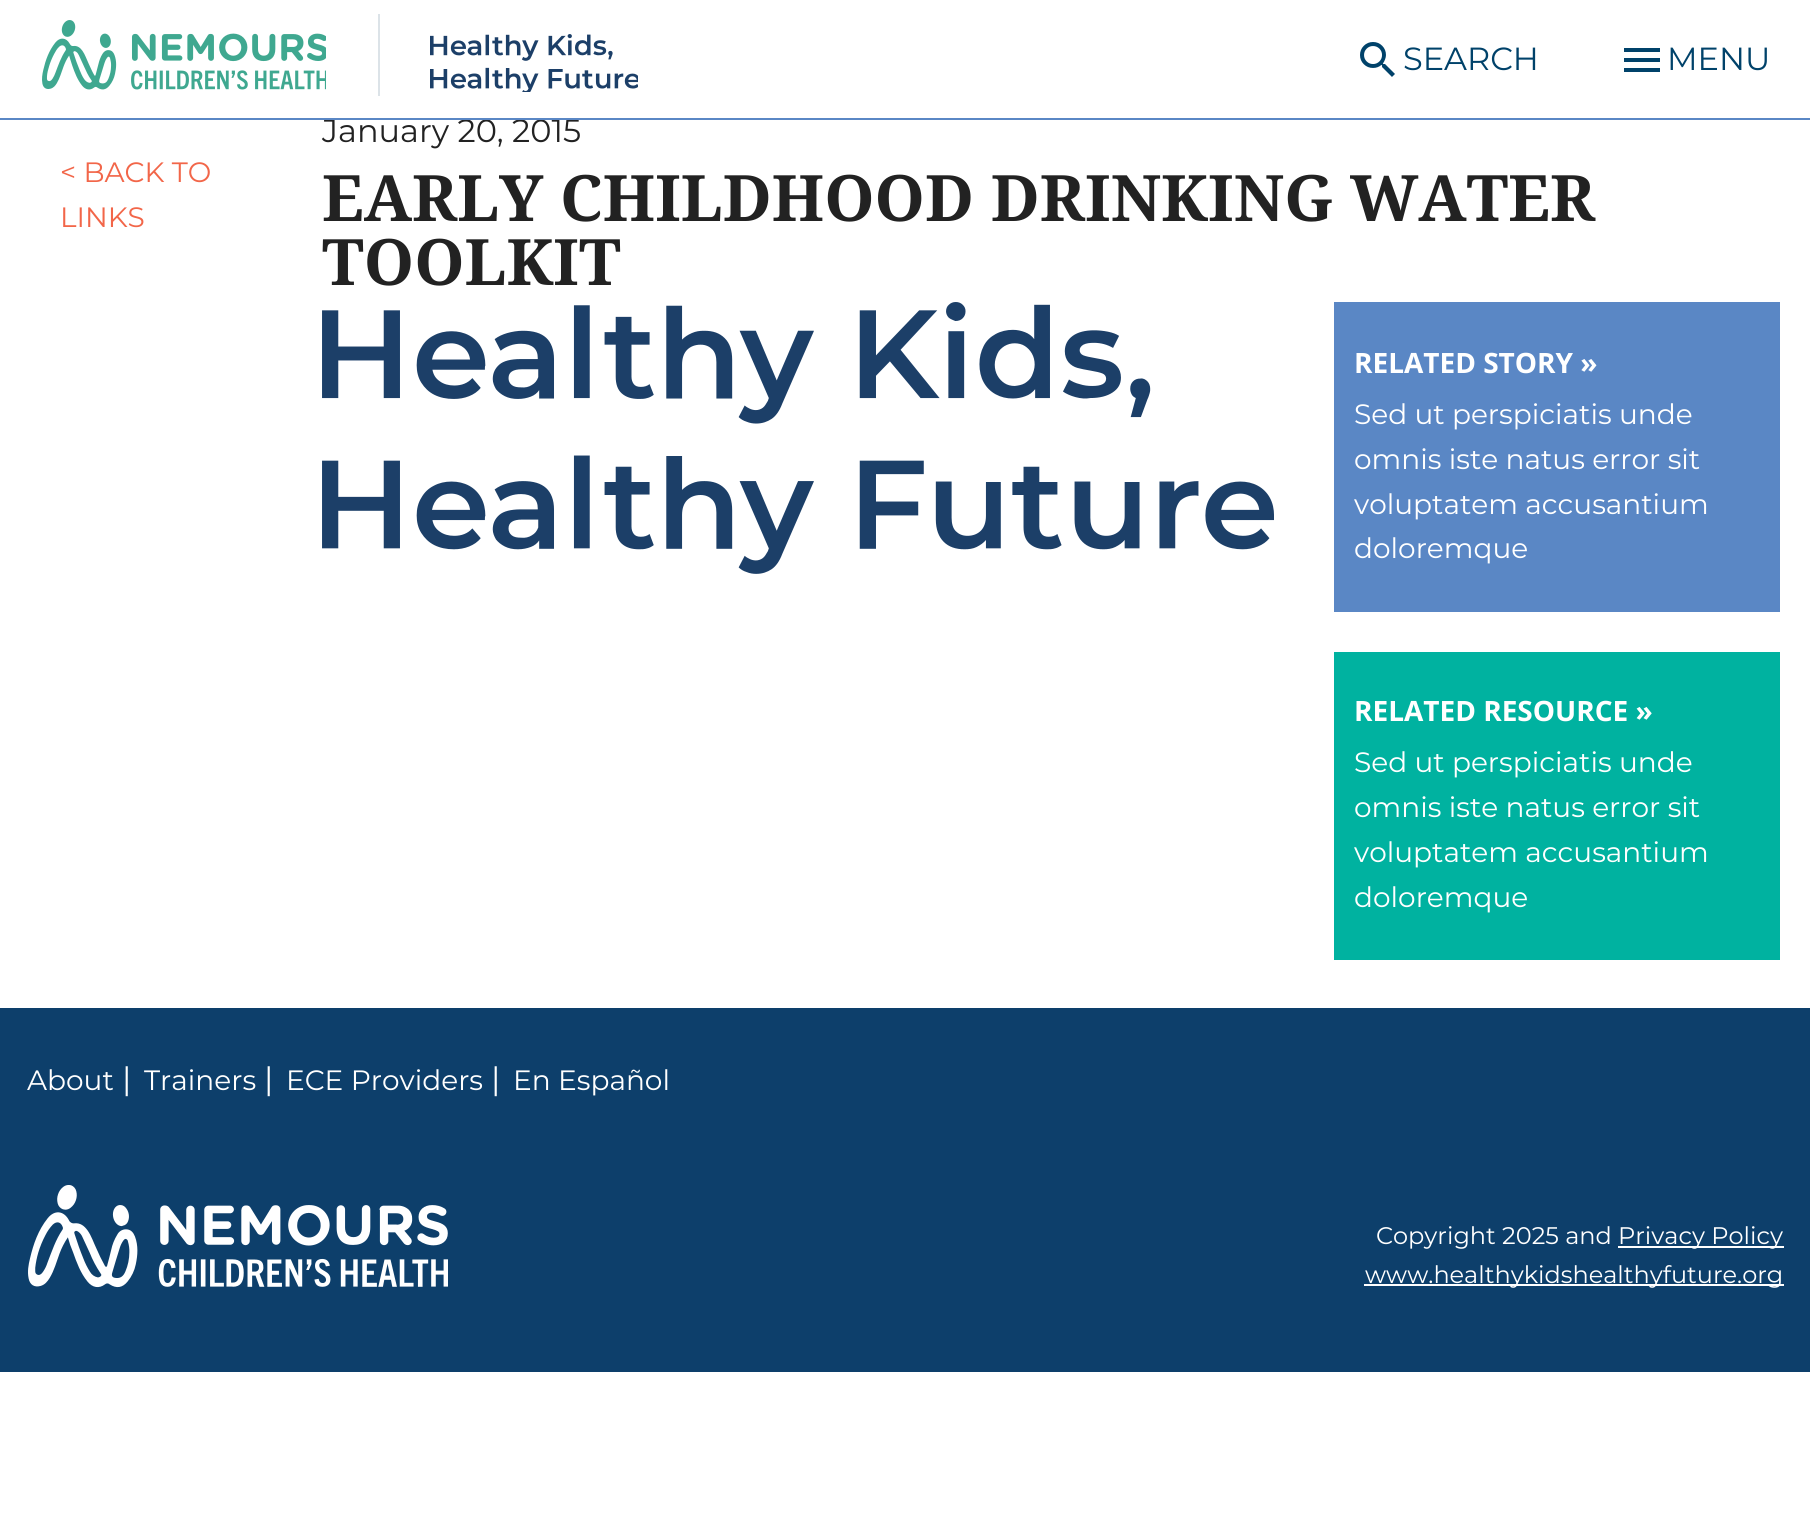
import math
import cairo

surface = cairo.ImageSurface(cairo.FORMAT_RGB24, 1810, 1531)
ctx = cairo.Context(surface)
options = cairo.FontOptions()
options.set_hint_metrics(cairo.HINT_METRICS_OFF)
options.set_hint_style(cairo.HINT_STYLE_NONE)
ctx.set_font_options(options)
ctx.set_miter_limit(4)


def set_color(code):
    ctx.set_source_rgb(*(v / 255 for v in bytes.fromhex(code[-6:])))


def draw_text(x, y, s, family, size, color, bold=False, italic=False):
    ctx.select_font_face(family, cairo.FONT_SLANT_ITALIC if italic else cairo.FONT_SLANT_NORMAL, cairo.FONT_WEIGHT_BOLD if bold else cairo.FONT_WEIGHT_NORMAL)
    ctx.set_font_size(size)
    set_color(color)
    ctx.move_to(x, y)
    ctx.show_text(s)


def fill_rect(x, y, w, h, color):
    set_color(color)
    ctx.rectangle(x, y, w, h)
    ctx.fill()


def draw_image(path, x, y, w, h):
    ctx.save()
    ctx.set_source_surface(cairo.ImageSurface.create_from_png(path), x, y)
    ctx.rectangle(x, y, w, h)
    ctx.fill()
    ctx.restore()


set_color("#ffffff")
ctx.paint()
draw_image("assets/img1.png", 42, 20, 284, 70)
fill_rect(378, 14, 2, 82, "#dce3e8")
draw_image("assets/img2.png", 430, 34, 208, 58)
draw_image("assets/img3.png", 1360, 42, 35, 35)
draw_text(1403, 70, "SEARCH", "Montserrat", 32, "#00426a")
ctx.new_path()
ctx.move_to(1624, 48)
ctx.line_to(1660, 48)
ctx.line_to(1660, 52)
ctx.line_to(1624, 52)
ctx.close_path()
ctx.move_to(1624, 62)
ctx.line_to(1624, 58)
ctx.line_to(1660, 58)
ctx.line_to(1660, 62)
ctx.close_path()
ctx.move_to(1624, 72)
ctx.line_to(1624, 68)
ctx.line_to(1660, 68)
ctx.line_to(1660, 72)
ctx.close_path()
ctx.fill()
draw_text(1667, 70, "MENU", "Montserrat", 32, "#00426a")
draw_text(322, 142, "January 20, 2015", "Montserrat", 32, "#222222")
fill_rect(0, 118, 1810, 2, "#5a87c5")
draw_text(60, 182, "< BACK TO", "Montserrat", 28, "#f26649")
draw_text(60, 227, "LINKS", "Montserrat", 28, "#f26649")
draw_text(322, 221, "EARLY CHILDHOOD DRINKING WATER", "Noto Serif", 64, "#222222", bold=True)
draw_text(322, 285, "TOOLKIT", "Noto Serif", 64, "#222222", bold=True)
draw_image("assets/img4.png", 322, 302, 952, 272)
fill_rect(1334, 302, 446, 310, "#5a87c5")
draw_text(1354, 373, "RELATED STORY »", "Open Sans", 28, "#ffffff", bold=True)
draw_text(1354, 424, "Sed ut perspiciatis unde", "Montserrat", 28, "#ffffff")
draw_text(1354, 469, "omnis iste natus error sit", "Montserrat", 28, "#ffffff")
draw_text(1354, 514, "voluptatem accusantium", "Montserrat", 28, "#ffffff")
draw_text(1354, 558, "doloremque", "Montserrat", 28, "#ffffff")
fill_rect(1334, 652, 446, 308, "#00b2a0")
draw_text(1354, 721, "RELATED RESOURCE »", "Open Sans", 28, "#ffffff", bold=True)
draw_text(1354, 772, "Sed ut perspiciatis unde", "Montserrat", 28, "#ffffff")
draw_text(1354, 817, "omnis iste natus error sit", "Montserrat", 28, "#ffffff")
draw_text(1354, 862, "voluptatem accusantium", "Montserrat", 28, "#ffffff")
draw_text(1354, 907, "doloremque", "Montserrat", 28, "#ffffff")
fill_rect(0, 1008, 1810, 364, "#0d3f6b")
draw_text(27, 1090, "About", "Montserrat", 28, "#ffffff")
draw_text(122, 1090, "|", "Montserrat", 32, "#ffffff")
draw_text(144, 1090, "Trainers", "Montserrat", 28, "#ffffff")
draw_text(264, 1090, "|", "Montserrat", 32, "#ffffff")
draw_text(286, 1090, "ECE Providers", "Montserrat", 28, "#ffffff")
draw_text(491, 1090, "|", "Montserrat", 32, "#ffffff")
draw_text(513, 1090, "En Español", "Montserrat", 28, "#ffffff")
draw_image("assets/img5.png", 28, 1185, 420, 103)
draw_text(1376, 1244, "Copyright 2025 and", "Montserrat", 24, "#ffffff")
fill_rect(1618, 1246, 166, 2, "#ffffff")
draw_text(1618, 1244, "Privacy Policy", "Montserrat", 24, "#ffffff")
fill_rect(1364, 1284, 420, 2, "#ffffff")
draw_text(1365, 1283, "www.healthykidshealthyfuture.org", "Montserrat", 24, "#ffffff")
surface.write_to_png("output.png")
